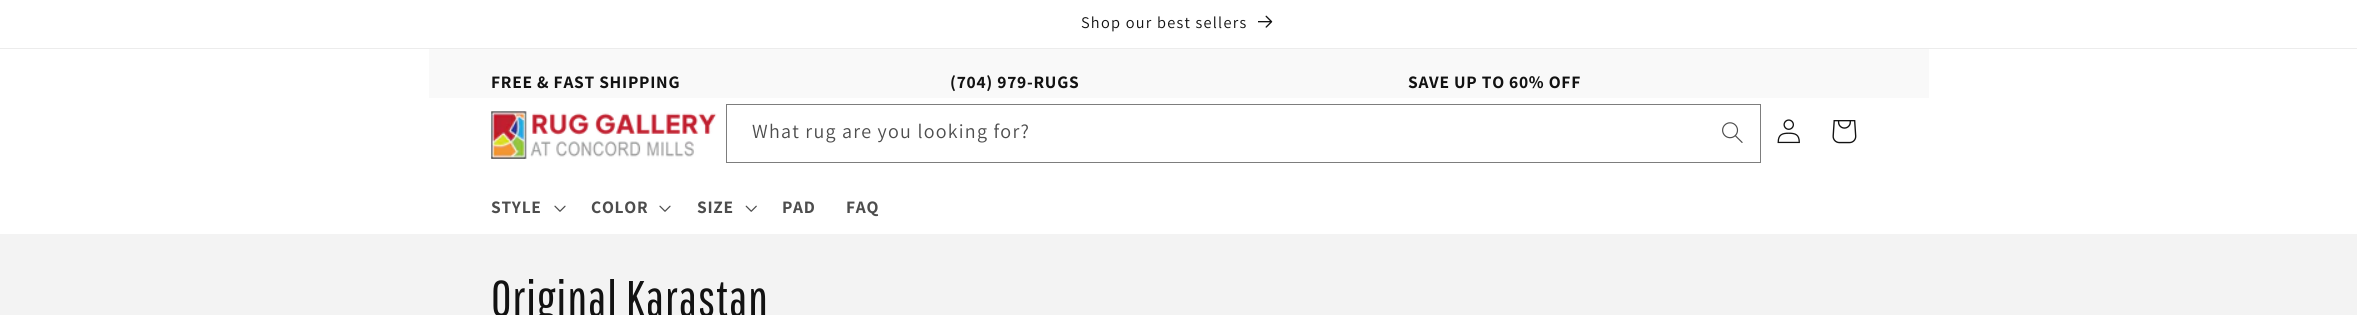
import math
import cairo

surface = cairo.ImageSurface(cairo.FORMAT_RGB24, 2357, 315)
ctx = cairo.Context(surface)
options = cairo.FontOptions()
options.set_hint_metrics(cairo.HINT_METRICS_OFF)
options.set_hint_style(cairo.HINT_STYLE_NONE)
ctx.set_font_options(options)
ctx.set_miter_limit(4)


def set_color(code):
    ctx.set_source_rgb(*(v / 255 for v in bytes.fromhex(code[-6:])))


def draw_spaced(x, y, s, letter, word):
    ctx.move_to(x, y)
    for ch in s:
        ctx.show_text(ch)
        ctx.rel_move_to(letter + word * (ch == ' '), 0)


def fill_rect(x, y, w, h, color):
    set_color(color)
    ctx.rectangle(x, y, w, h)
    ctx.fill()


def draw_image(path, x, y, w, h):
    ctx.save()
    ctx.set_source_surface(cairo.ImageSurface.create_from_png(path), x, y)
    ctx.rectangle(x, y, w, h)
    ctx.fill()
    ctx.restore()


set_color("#ffffff")
ctx.paint()
fill_rect(0, 48, 2357, 1, "#ececec")
ctx.select_font_face("Assistant")
ctx.set_font_size(16.25)
set_color("#121212")
draw_spaced(1081, 28, "Shop our best sellers", 1.25, 0)
draw_image("assets/img1.png", 1258, 15, 15, 13)
fill_rect(429, 49, 1500, 49, "#f9f9f9")
ctx.select_font_face("Assistant", cairo.FONT_SLANT_NORMAL, cairo.FONT_WEIGHT_BOLD)
ctx.set_font_size(17.5)
set_color("#121212")
draw_spaced(491, 88, "FREE & FAST SHIPPING", 0.75, 0)
draw_spaced(950, 88, "(704) 979-RUGS", 0.75, 0)
draw_spaced(1408, 88, "SAVE UP TO 60% OFF", 0.75, 0)
draw_image("assets/img2.png", 491, 111, 226, 48)
draw_image("assets/img3.png", 1722, 122, 21, 21)
ctx.rectangle(726.5, 104.5, 1034, 58)
set_color("#7d7d7d")
ctx.set_line_width(1)
ctx.stroke()
ctx.select_font_face("Assistant")
ctx.set_font_size(20)
set_color("#4d4d4d")
draw_spaced(752, 138, "What rug are you looking for?", 1.25, 0)
draw_image("assets/img4.png", 1777, 119, 23, 25)
draw_image("assets/img5.png", 1832, 120, 25, 24)
ctx.select_font_face("Assistant", cairo.FONT_SLANT_NORMAL, cairo.FONT_WEIGHT_BOLD)
ctx.set_font_size(17.5)
draw_spaced(491, 213, "STYLE", 0.75, 0)
draw_image("assets/img6.png", 554, 205, 12, 7)
draw_spaced(591, 213, "COLOR", 0.75, 0)
draw_image("assets/img6.png", 659, 205, 12, 7)
draw_spaced(697, 213, "SIZE", 0.75, 0)
draw_image("assets/img7.png", 745, 205, 12, 7)
draw_spaced(782, 213, "PAD", 0.75, 0)
draw_spaced(846, 213, "FAQ", 0.75, 0)
fill_rect(0, 234, 2357, 81, "#f3f3f3")
ctx.select_font_face("Pathway Gothic One")
ctx.set_font_size(50)
set_color("#121212")
draw_spaced(491, 316, "Original Karastan", 0.75, 0)
surface.write_to_png("output.png")
